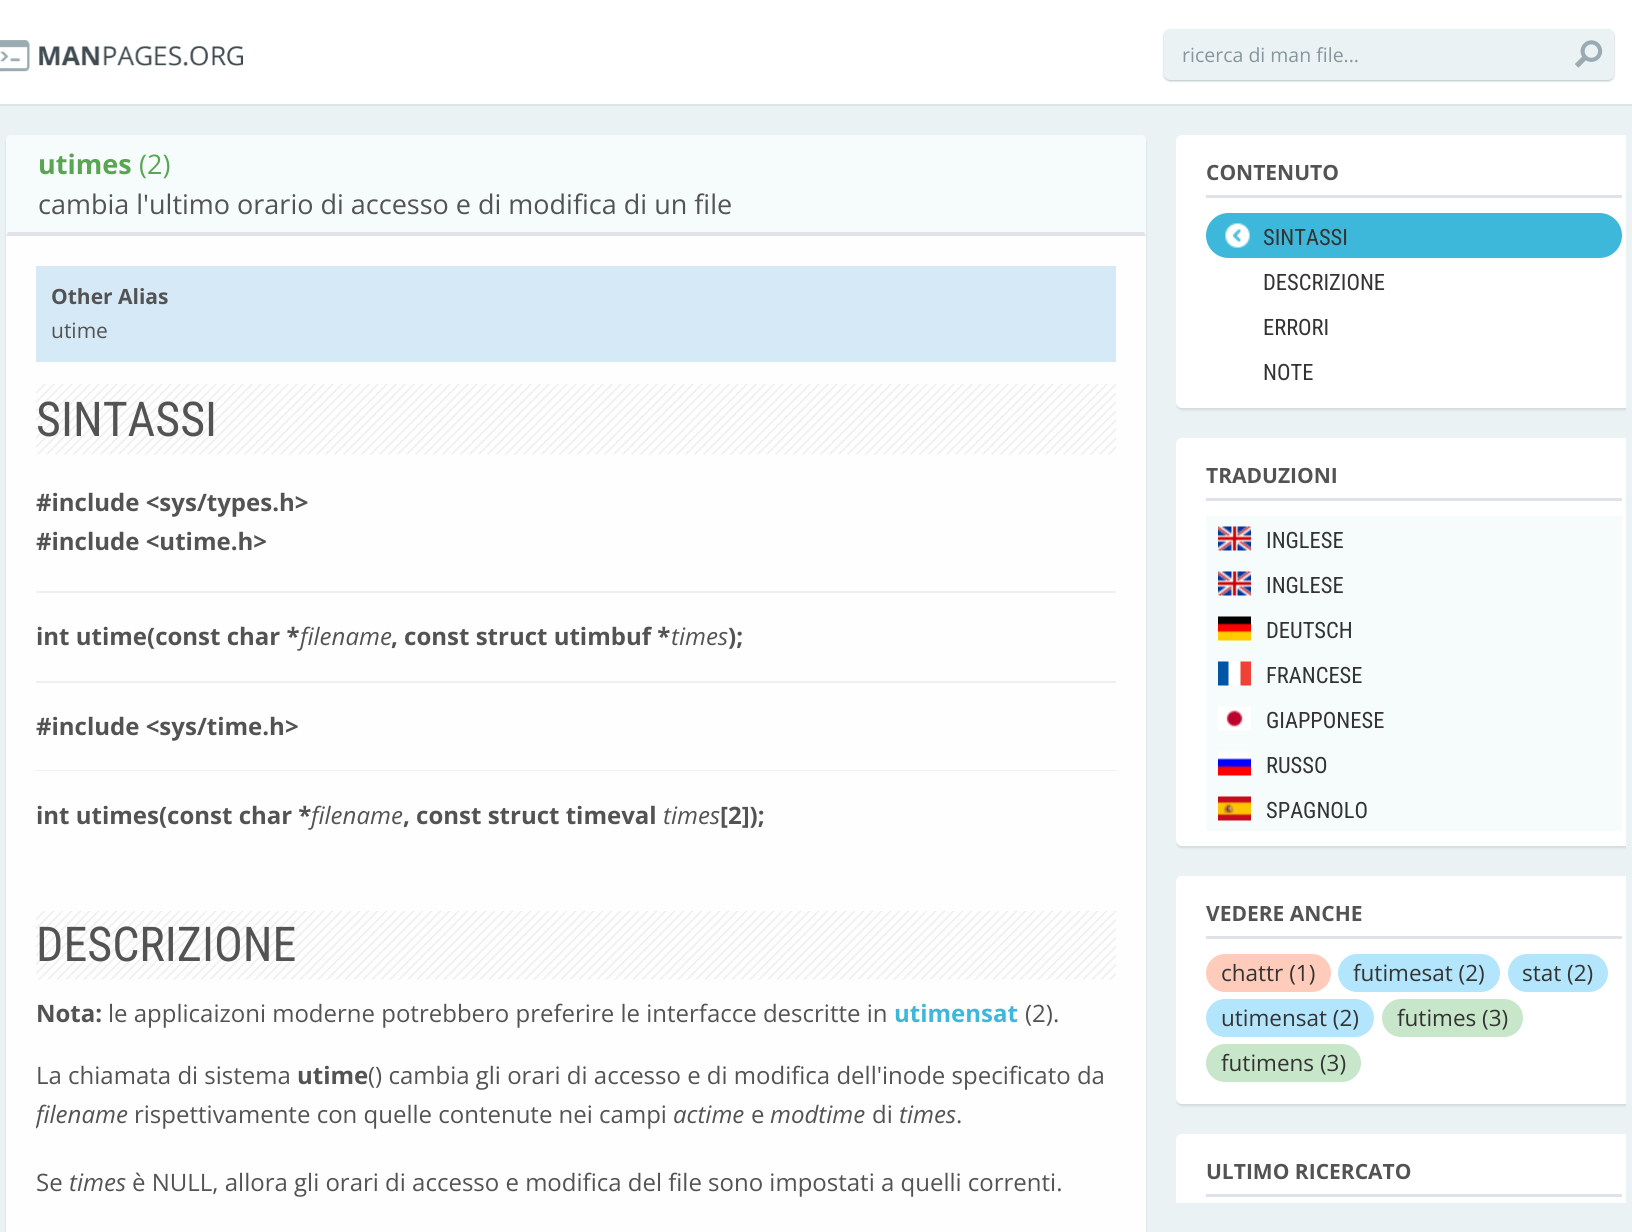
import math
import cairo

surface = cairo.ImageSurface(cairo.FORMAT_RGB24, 1632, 1232)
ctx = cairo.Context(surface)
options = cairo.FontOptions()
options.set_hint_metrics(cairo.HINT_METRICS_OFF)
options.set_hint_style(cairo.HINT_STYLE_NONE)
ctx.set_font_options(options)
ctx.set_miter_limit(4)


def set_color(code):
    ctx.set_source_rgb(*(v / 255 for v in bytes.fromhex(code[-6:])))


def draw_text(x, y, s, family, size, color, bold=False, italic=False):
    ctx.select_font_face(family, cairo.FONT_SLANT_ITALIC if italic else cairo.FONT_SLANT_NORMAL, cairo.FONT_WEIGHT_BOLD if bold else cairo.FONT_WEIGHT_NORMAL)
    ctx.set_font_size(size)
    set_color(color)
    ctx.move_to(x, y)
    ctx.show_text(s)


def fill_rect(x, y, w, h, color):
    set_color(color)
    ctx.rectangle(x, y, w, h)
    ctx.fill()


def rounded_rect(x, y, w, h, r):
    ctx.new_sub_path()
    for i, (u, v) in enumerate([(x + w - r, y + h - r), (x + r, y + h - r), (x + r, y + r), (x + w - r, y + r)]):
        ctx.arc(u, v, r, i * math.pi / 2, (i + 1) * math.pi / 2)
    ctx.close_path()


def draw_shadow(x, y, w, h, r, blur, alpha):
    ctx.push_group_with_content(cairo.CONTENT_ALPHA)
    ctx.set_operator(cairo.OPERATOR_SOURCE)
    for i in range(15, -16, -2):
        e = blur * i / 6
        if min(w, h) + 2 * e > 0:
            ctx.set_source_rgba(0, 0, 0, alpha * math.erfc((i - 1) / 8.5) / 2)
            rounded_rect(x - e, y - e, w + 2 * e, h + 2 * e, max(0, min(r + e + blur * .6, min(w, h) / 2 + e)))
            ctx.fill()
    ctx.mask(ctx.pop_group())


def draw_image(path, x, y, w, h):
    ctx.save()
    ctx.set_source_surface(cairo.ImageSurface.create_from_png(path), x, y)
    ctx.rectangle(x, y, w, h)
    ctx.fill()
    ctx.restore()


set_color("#eaf2f4")
ctx.paint()
fill_rect(0, 0, 1632, 104, "#ffffff")
fill_rect(0, 104, 1632, 2, "#dce5e7")
draw_image("assets/img1.png", 0, 40, 243, 32)
set_color("#062f37")
draw_shadow(1164, 30, 450, 51, 6, 1, 0.3)
set_color("#eaf2f4")
rounded_rect(1164, 29, 450, 51, 6)
ctx.fill()
draw_text(1182, 62, "ricerca di man file...", "Open Sans", 19.5, "#86969d")
draw_image("assets/img2.png", 1575, 40, 28, 28)
set_color("#000000")
draw_shadow(6, 137, 1140, 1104, 6, 1, 0.1)
set_color("#fefefe")
ctx.new_path()
ctx.move_to(12, 135)
ctx.line_to(1140, 135)
ctx.curve_to(1143.5, 135, 1146, 137.5, 1146, 141)
ctx.line_to(1146, 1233)
ctx.line_to(6, 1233)
ctx.line_to(6, 141)
ctx.curve_to(6, 137.5, 8.5, 135, 12, 135)
ctx.close_path()
ctx.fill()
set_color("#f6fbfc")
ctx.new_path()
ctx.move_to(11, 135)
ctx.line_to(1141, 135)
ctx.curve_to(1144, 135, 1146, 137, 1146, 140)
ctx.line_to(1146, 236)
ctx.line_to(6, 236)
ctx.line_to(6, 140)
ctx.curve_to(6, 137, 8, 135, 11, 135)
ctx.close_path()
ctx.fill()
set_color("#dfe3e9")
ctx.new_path()
ctx.move_to(1146, 236)
ctx.line_to(6, 236)
ctx.line_to(8, 232)
ctx.line_to(1144, 232)
ctx.close_path()
ctx.fill()
draw_text(38, 174, "utimes", "Open Sans", 27, "#59a552", bold=True)
draw_text(139, 174, "(2)", "Open Sans", 27, "#59a552")
draw_text(38, 214, "cambia l'ultimo orario di accesso e di modifica di un file", "Open Sans", 27, "#535353")
fill_rect(36, 266, 1080, 96, "#d5e9f6")
draw_text(51, 304, "Other Alias", "Open Sans", 21, "#535353", bold=True)
draw_text(51, 338, "utime", "Open Sans", 21, "#535353")
draw_image("assets/img3.png", 36, 384, 1080, 71)
draw_text(36, 436, "SINTASSI", "Roboto Condensed", 48, "#535353")
draw_text(36, 511, "#include <sys/types.h>", "Open Sans", 24, "#535353", bold=True)
draw_text(36, 550, "#include <utime.h>", "Open Sans", 24, "#535353", bold=True)
fill_rect(36, 591, 1080, 2, "#efefef")
draw_text(36, 645, "int utime(const char *", "Open Sans", 24, "#535353", bold=True)
draw_text(300, 645, "filename", "Open Sans", 24, "#535353", italic=True)
draw_text(391, 645, ", const struct utimbuf *", "Open Sans", 24, "#535353", bold=True)
draw_text(671, 645, "times", "Open Sans", 24, "#535353", italic=True)
draw_text(728, 645, ");", "Open Sans", 24, "#535353", bold=True)
fill_rect(36, 681, 1080, 2, "#efefef")
draw_text(36, 735, "#include <sys/time.h>", "Open Sans", 24, "#535353", bold=True)
fill_rect(36, 770, 1080, 1, "#efefef")
draw_text(36, 824, "int utimes(const char *", "Open Sans", 24, "#535353", bold=True)
draw_text(311, 824, "filename", "Open Sans", 24, "#535353", italic=True)
draw_text(403, 824, ", const struct timeval", "Open Sans", 24, "#535353", bold=True)
draw_text(663, 824, "times", "Open Sans", 24, "#535353", italic=True)
draw_text(720, 824, "[2]);", "Open Sans", 24, "#535353", bold=True)
draw_image("assets/img4.png", 36, 911, 1080, 69)
draw_text(36, 961, "DESCRIZIONE", "Roboto Condensed", 48, "#535353")
draw_text(36, 1022, "Nota:", "Open Sans", 24, "#535353", bold=True)
draw_text(108, 1022, "le applicaizoni moderne potrebbero preferire le interfacce descritte in", "Open Sans", 24, "#535353")
draw_text(894, 1022, "utimensat", "Open Sans", 24, "#3db8db", bold=True)
draw_text(1025, 1022, "(2).", "Open Sans", 24, "#535353")
draw_text(36, 1084, "La chiamata di sistema", "Open Sans", 24, "#535353")
draw_text(297, 1084, "utime", "Open Sans", 24, "#535353", bold=True)
draw_text(368, 1084, "() cambia gli orari di accesso e di modifica dell'inode specificato da", "Open Sans", 24, "#535353")
ctx.save()
ctx.rectangle(36, 911, 1080, 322)
ctx.clip()
draw_text(36, 1123, "filename", "Open Sans", 24, "#535353", italic=True)
ctx.restore()
draw_text(134, 1123, "rispettivamente con quelle contenute nei campi", "Open Sans", 24, "#535353")
draw_text(673, 1123, "actime", "Open Sans", 24, "#535353", italic=True)
draw_text(751, 1123, "e", "Open Sans", 24, "#535353")
draw_text(770, 1123, "modtime", "Open Sans", 24, "#535353", italic=True)
draw_text(872, 1123, "di", "Open Sans", 24, "#535353")
draw_text(899, 1123, "times", "Open Sans", 24, "#535353", italic=True)
draw_text(956, 1123, ".", "Open Sans", 24, "#535353")
draw_text(36, 1191, "Se", "Open Sans", 24, "#535353")
draw_text(69, 1191, "times", "Open Sans", 24, "#535353", italic=True)
draw_text(132, 1191, "è NULL, allora gli orari di accesso e modifica del file sono impostati a quelli correnti.", "Open Sans", 24, "#535353")
ctx.save()
ctx.rectangle(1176, 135, 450, 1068)
ctx.clip()
set_color("#000000")
draw_shadow(1176, 137, 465, 273, 6, 1, 0.1)
ctx.restore()
set_color("#ffffff")
ctx.new_path()
ctx.move_to(1182, 135)
ctx.line_to(1626, 135)
ctx.line_to(1626, 408)
ctx.line_to(1182, 408)
ctx.curve_to(1178.5, 408, 1176, 405.5, 1176, 402)
ctx.line_to(1176, 141)
ctx.curve_to(1176, 137.5, 1178.5, 135, 1182, 135)
ctx.close_path()
ctx.fill()
fill_rect(1206, 195, 416, 3, "#dfe3e9")
draw_text(1206, 180, "CONTENUTO", "Open Sans", 21, "#535353", bold=True)
set_color("#3db8db")
rounded_rect(1206, 213, 416, 45, 22.5)
ctx.fill()
draw_image("assets/img5.png", 1225, 223, 25, 25)
draw_text(1263, 245, "SINTASSI", "Roboto Condensed", 22.5, "#333333")
draw_text(1263, 290, "DESCRIZIONE", "Roboto Condensed", 22.5, "#333333")
draw_text(1263, 335, "ERRORI", "Roboto Condensed", 22.5, "#333333")
draw_text(1263, 380, "NOTE", "Roboto Condensed", 22.5, "#333333")
ctx.save()
ctx.rectangle(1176, 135, 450, 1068)
ctx.clip()
set_color("#000000")
draw_shadow(1176, 440, 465, 408, 6, 1, 0.1)
ctx.restore()
set_color("#ffffff")
ctx.new_path()
ctx.move_to(1182, 438)
ctx.line_to(1626, 438)
ctx.line_to(1626, 846)
ctx.line_to(1182, 846)
ctx.curve_to(1178.5, 846, 1176, 843.5, 1176, 840)
ctx.line_to(1176, 444)
ctx.curve_to(1176, 440.5, 1178.5, 438, 1182, 438)
ctx.close_path()
ctx.fill()
fill_rect(1206, 498, 416, 3, "#dfe3e9")
draw_text(1206, 483, "TRADUZIONI", "Open Sans", 21, "#535353", bold=True)
fill_rect(1206, 516, 416, 315, "#f6fbfc")
draw_image("assets/img6.png", 1218, 526, 33, 25)
draw_text(1266, 548, "INGLESE", "Roboto Condensed", 22.5, "#333333")
draw_image("assets/img7.png", 1218, 571, 33, 25)
draw_text(1266, 593, "INGLESE", "Roboto Condensed", 22.5, "#333333")
draw_image("assets/img8.png", 1218, 616, 33, 25)
draw_text(1266, 638, "DEUTSCH", "Roboto Condensed", 22.5, "#333333")
draw_image("assets/img9.png", 1218, 661, 33, 25)
draw_text(1266, 683, "FRANCESE", "Roboto Condensed", 22.5, "#333333")
draw_image("assets/img10.png", 1218, 706, 33, 25)
draw_text(1266, 728, "GIAPPONESE", "Roboto Condensed", 22.5, "#333333")
draw_image("assets/img11.png", 1218, 751, 33, 25)
draw_text(1266, 773, "RUSSO", "Roboto Condensed", 22.5, "#333333")
draw_image("assets/img12.png", 1218, 796, 33, 25)
draw_text(1266, 818, "SPAGNOLO", "Roboto Condensed", 22.5, "#333333")
ctx.save()
ctx.rectangle(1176, 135, 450, 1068)
ctx.clip()
set_color("#000000")
draw_shadow(1176, 878, 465, 228, 6, 1, 0.1)
ctx.restore()
set_color("#ffffff")
ctx.new_path()
ctx.move_to(1182, 876)
ctx.line_to(1626, 876)
ctx.line_to(1626, 1104)
ctx.line_to(1182, 1104)
ctx.curve_to(1178.5, 1104, 1176, 1101.5, 1176, 1098)
ctx.line_to(1176, 882)
ctx.curve_to(1176, 878.5, 1178.5, 876, 1182, 876)
ctx.close_path()
ctx.fill()
fill_rect(1206, 936, 416, 3, "#dfe3e9")
draw_text(1206, 921, "VEDERE ANCHE", "Open Sans", 21, "#535353", bold=True)
set_color("#ffccbc")
rounded_rect(1206, 954, 125, 38, 19)
ctx.fill()
draw_text(1221, 981, "chattr (1)", "Open Sans", 22.5, "#333333")
set_color("#b3e5fc")
rounded_rect(1338, 954, 162, 38, 19)
ctx.fill()
draw_text(1353, 981, "futimesat (2)", "Open Sans", 22.5, "#333333")
set_color("#b3e5fc")
rounded_rect(1508, 954, 100, 38, 19)
ctx.fill()
draw_text(1522, 981, "stat (2)", "Open Sans", 22.5, "#333333")
set_color("#b3e5fc")
rounded_rect(1206, 999, 168, 38, 19)
ctx.fill()
draw_text(1221, 1026, "utimensat (2)", "Open Sans", 22.5, "#333333")
set_color("#c8e6c9")
rounded_rect(1382, 999, 141, 38, 19)
ctx.fill()
draw_text(1397, 1026, "futimes (3)", "Open Sans", 22.5, "#333333")
set_color("#c8e6c9")
rounded_rect(1206, 1044, 155, 38, 19)
ctx.fill()
draw_text(1221, 1071, "futimens (3)", "Open Sans", 22.5, "#333333")
set_color("#ffffff")
ctx.new_path()
ctx.move_to(1182, 1134)
ctx.line_to(1626, 1134)
ctx.line_to(1626, 1203)
ctx.line_to(1176, 1203)
ctx.line_to(1176, 1140)
ctx.curve_to(1176, 1136.5, 1178.5, 1134, 1182, 1134)
ctx.close_path()
ctx.fill()
fill_rect(1206, 1194, 416, 3, "#dfe3e9")
draw_text(1206, 1179, "ULTIMO RICERCATO", "Open Sans", 21, "#535353", bold=True)
surface.write_to_png("output.png")
